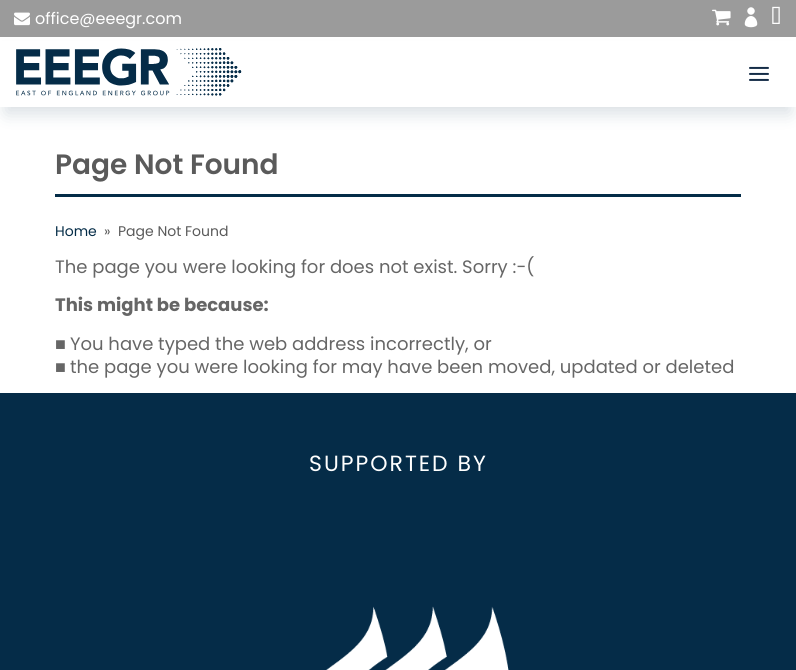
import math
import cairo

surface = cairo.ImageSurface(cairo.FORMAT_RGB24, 796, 670)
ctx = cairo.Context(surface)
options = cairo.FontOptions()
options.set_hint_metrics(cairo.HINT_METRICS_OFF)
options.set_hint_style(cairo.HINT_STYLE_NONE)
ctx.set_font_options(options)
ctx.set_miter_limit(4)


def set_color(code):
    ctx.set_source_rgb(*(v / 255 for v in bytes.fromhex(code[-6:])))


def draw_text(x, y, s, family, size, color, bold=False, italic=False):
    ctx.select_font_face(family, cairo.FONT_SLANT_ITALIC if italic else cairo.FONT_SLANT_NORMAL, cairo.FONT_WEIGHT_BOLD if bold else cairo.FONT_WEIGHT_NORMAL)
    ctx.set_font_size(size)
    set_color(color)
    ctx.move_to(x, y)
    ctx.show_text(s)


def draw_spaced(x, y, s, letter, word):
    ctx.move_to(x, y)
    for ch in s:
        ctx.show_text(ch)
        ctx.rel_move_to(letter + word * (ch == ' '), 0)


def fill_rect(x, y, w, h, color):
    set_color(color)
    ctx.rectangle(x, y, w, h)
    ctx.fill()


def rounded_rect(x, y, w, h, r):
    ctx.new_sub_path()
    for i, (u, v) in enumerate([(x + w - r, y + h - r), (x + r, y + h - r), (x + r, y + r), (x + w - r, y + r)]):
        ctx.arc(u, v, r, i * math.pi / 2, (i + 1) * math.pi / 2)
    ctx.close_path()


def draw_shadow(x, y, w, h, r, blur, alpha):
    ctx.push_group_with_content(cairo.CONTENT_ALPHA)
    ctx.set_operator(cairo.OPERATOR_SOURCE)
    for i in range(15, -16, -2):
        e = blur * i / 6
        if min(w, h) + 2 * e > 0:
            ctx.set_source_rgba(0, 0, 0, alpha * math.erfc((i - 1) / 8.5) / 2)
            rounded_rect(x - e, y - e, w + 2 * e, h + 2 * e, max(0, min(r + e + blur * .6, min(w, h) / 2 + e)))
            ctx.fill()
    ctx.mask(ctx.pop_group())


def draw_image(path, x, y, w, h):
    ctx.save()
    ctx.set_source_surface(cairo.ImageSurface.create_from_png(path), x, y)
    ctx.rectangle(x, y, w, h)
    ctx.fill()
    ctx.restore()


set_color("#ffffff")
ctx.paint()
fill_rect(0, 0, 796, 37, "#9b9b9b")
draw_image("assets/img1.png", 14, 12, 16, 14)
draw_text(35, 24, "office@eeegr.com", "Poppins", 16, "#ffffff")
draw_image("assets/img2.png", 712, 9, 19, 17)
draw_image("assets/img3.png", 744, 7, 14, 21)
draw_image("assets/img4.png", 772, 6, 8, 18)
set_color("#052c48")
draw_shadow(6, 55, 784, 58, 0, 9, 0.16)
fill_rect(0, 41, 796, 66, "#ffffff")
draw_image("assets/img5.png", 16, 48, 226, 48)
draw_image("assets/img6.png", 749, 66, 20, 15)
fill_rect(55, 194, 686, 3, "#042c47")
draw_text(55, 174, "Page Not Found", "Poppins SemiBold", 28, "#5a5a5a")
draw_text(55, 236, "Home", "Poppins", 14, "#042c47")
draw_text(104, 236, "»  Page Not Found", "Poppins", 14, "#5a5a5a")
draw_text(55, 273, "The page you were looking for does not exist. Sorry :-(", "Poppins", 18, "#666666")
draw_text(55, 311, "This might be because:", "Poppins", 18, "#666666", bold=True)
draw_text(55, 350, "■", "Liberation Sans", 18, "#666666")
draw_text(70, 350, "You have typed the web address incorrectly, or", "Poppins", 18, "#666666")
draw_text(55, 373, "■", "Liberation Sans", 18, "#666666")
draw_text(70, 373, "the page you were looking for may have been moved, updated or deleted", "Poppins", 18, "#666666")
fill_rect(0, 393, 796, 277, "#052c48")
ctx.set_font_size(22)
set_color("#ffffff")
draw_spaced(309, 471, "SUPPORTED BY", 2, 0)
draw_image("assets/img7.png", 326, 606, 183, 64)
surface.write_to_png("output.png")
